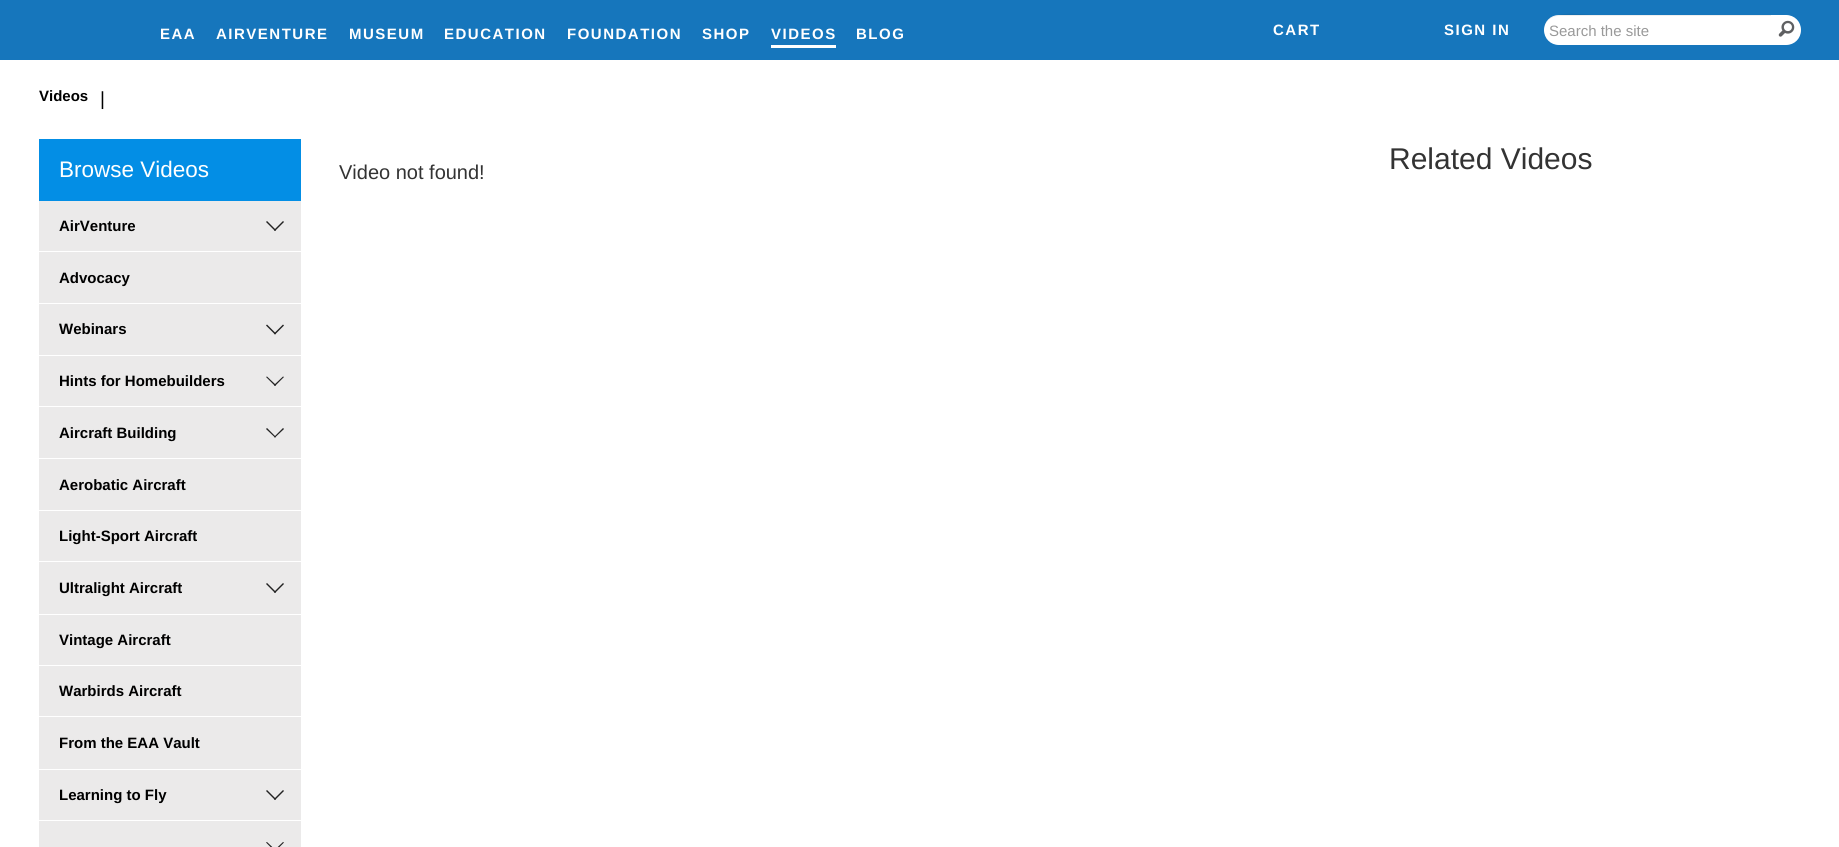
import math
import cairo

surface = cairo.ImageSurface(cairo.FORMAT_RGB24, 1839, 847)
ctx = cairo.Context(surface)
options = cairo.FontOptions()
options.set_hint_metrics(cairo.HINT_METRICS_OFF)
options.set_hint_style(cairo.HINT_STYLE_NONE)
ctx.set_font_options(options)
ctx.set_miter_limit(4)


def set_color(code):
    ctx.set_source_rgb(*(v / 255 for v in bytes.fromhex(code[-6:])))


def draw_text(x, y, s, family, size, color, bold=False, italic=False):
    ctx.select_font_face(family, cairo.FONT_SLANT_ITALIC if italic else cairo.FONT_SLANT_NORMAL, cairo.FONT_WEIGHT_BOLD if bold else cairo.FONT_WEIGHT_NORMAL)
    ctx.set_font_size(size)
    set_color(color)
    ctx.move_to(x, y)
    ctx.show_text(s)


def draw_spaced(x, y, s, letter, word):
    ctx.move_to(x, y)
    for ch in s:
        ctx.show_text(ch)
        ctx.rel_move_to(letter + word * (ch == ' '), 0)


def fill_rect(x, y, w, h, color):
    set_color(color)
    ctx.rectangle(x, y, w, h)
    ctx.fill()


def draw_image(path, x, y, w, h):
    ctx.save()
    ctx.set_source_surface(cairo.ImageSurface.create_from_png(path), x, y)
    ctx.rectangle(x, y, w, h)
    ctx.fill()
    ctx.restore()


set_color("#ffffff")
ctx.paint()
fill_rect(0, 0, 1839, 60, "#1676bc")
ctx.select_font_face("Liberation Sans", cairo.FONT_SLANT_NORMAL, cairo.FONT_WEIGHT_BOLD)
ctx.set_font_size(15)
set_color("#ffffff")
draw_spaced(160, 39, "EAA", 1.5, 0)
draw_spaced(216, 39, "AIRVENTURE", 1.5, 0)
draw_spaced(349, 39, "MUSEUM", 1.5, 0)
draw_spaced(444, 39, "EDUCATION", 1.5, 0)
draw_spaced(567, 39, "FOUNDATION", 1.5, 0)
draw_spaced(702, 39, "SHOP", 1.5, 0)
draw_spaced(771, 39, "VIDEOS", 1.5, 0)
fill_rect(771, 45, 65, 3, "#ffffff")
draw_spaced(856, 39, "BLOG", 1.5, 0)
draw_spaced(1273, 35, "CART", 1.5, 0)
draw_spaced(1444, 35, "SIGN IN", 1.5, 0)
ctx.new_path()
ctx.move_to(1559, 15)
ctx.line_to(1771, 15)
ctx.line_to(1771, 45)
ctx.line_to(1559, 45)
ctx.curve_to(1550.5, 45, 1544, 38.5, 1544, 30)
ctx.curve_to(1544, 21.5, 1550.5, 15, 1559, 15)
ctx.close_path()
ctx.fill()
ctx.set_source_rgba(0, 0, 0, 0.07)
ctx.new_path()
ctx.move_to(1559, 16)
ctx.line_to(1771, 16)
ctx.line_to(1771, 15)
ctx.line_to(1594, 15)
ctx.curve_to(1585, 15, 1543, 7, 1544, 30)
ctx.curve_to(1544, 23, 1550, 16, 1559, 16)
ctx.close_path()
ctx.fill()
draw_text(1549, 36, "Search the site", "Liberation Sans", 15, "#999999")
set_color("#ffffff")
ctx.new_path()
ctx.move_to(1771, 15)
ctx.line_to(1786, 15)
ctx.curve_to(1794.5, 15, 1801, 21.5, 1801, 30)
ctx.curve_to(1801, 38.5, 1794.5, 45, 1786, 45)
ctx.line_to(1771, 45)
ctx.close_path()
ctx.fill()
draw_image("assets/img1.png", 1778, 20, 17, 17)
draw_text(39, 101, "Videos", "Liberation Sans", 15, "#000000", bold=True)
draw_text(100, 105, "|", "Liberation Sans", 19, "#000000")
fill_rect(39, 201, 262, 646, "#ebeaea")
fill_rect(39, 139, 262, 62, "#038ee5")
draw_text(59, 177, "Browse Videos", "Liberation Sans", 22.5, "#ffffff")
fill_rect(39, 251, 262, 1, "#ffffff")
draw_text(59, 231, "AirVenture", "Liberation Sans", 15, "#000000", bold=True)
set_color("#222222")
ctx.new_path()
ctx.move_to(284, 222)
ctx.line_to(275, 231)
ctx.line_to(274, 230)
ctx.line_to(283, 221)
ctx.close_path()
ctx.fill()
ctx.new_path()
ctx.move_to(276, 230)
ctx.line_to(275, 231)
ctx.line_to(266, 222)
ctx.line_to(267, 221)
ctx.close_path()
ctx.fill()
fill_rect(39, 303, 262, 1, "#ffffff")
draw_text(59, 283, "Advocacy", "Liberation Sans", 15, "#000000", bold=True)
fill_rect(39, 355, 262, 1, "#ffffff")
draw_text(59, 334, "Webinars", "Liberation Sans", 15, "#000000", bold=True)
set_color("#222222")
ctx.new_path()
ctx.move_to(284, 325.5)
ctx.line_to(275, 334.5)
ctx.line_to(274, 333.5)
ctx.line_to(283, 324.5)
ctx.close_path()
ctx.fill()
ctx.new_path()
ctx.move_to(276, 333.5)
ctx.line_to(275, 334.5)
ctx.line_to(266, 325.5)
ctx.line_to(267, 324.5)
ctx.close_path()
ctx.fill()
fill_rect(39, 406, 262, 1, "#ffffff")
draw_text(59, 386, "Hints for Homebuilders", "Liberation Sans", 15, "#000000", bold=True)
set_color("#222222")
ctx.new_path()
ctx.move_to(284, 377)
ctx.line_to(275, 386)
ctx.line_to(274, 385)
ctx.line_to(283, 376.5)
ctx.close_path()
ctx.fill()
ctx.new_path()
ctx.move_to(276, 385)
ctx.line_to(275, 386)
ctx.line_to(266, 377)
ctx.line_to(267, 376.5)
ctx.close_path()
ctx.fill()
fill_rect(39, 458, 262, 1, "#ffffff")
draw_text(59, 438, "Aircraft Building", "Liberation Sans", 15, "#000000", bold=True)
set_color("#222222")
ctx.new_path()
ctx.move_to(284, 429)
ctx.line_to(275, 437.5)
ctx.line_to(274, 437)
ctx.line_to(283, 428)
ctx.close_path()
ctx.fill()
ctx.new_path()
ctx.move_to(276, 437)
ctx.line_to(275, 437.5)
ctx.line_to(266, 429)
ctx.line_to(267, 428)
ctx.close_path()
ctx.fill()
fill_rect(39, 510, 262, 1, "#ffffff")
draw_text(59, 490, "Aerobatic Aircraft", "Liberation Sans", 15, "#000000", bold=True)
fill_rect(39, 561, 262, 1, "#ffffff")
draw_text(59, 541, "Light-Sport Aircraft", "Liberation Sans", 15, "#000000", bold=True)
fill_rect(39, 614, 262, 1, "#ffffff")
draw_text(59, 593, "Ultralight Aircraft", "Liberation Sans", 15, "#000000", bold=True)
set_color("#222222")
ctx.new_path()
ctx.move_to(284, 584)
ctx.line_to(275, 593)
ctx.line_to(274, 592)
ctx.line_to(283, 583)
ctx.close_path()
ctx.fill()
ctx.new_path()
ctx.move_to(276, 592)
ctx.line_to(275, 593)
ctx.line_to(266, 584)
ctx.line_to(267, 583)
ctx.close_path()
ctx.fill()
fill_rect(39, 665, 262, 1, "#ffffff")
draw_text(59, 645, "Vintage Aircraft", "Liberation Sans", 15, "#000000", bold=True)
fill_rect(39, 716, 262, 1, "#ffffff")
draw_text(59, 696, "Warbirds Aircraft", "Liberation Sans", 15, "#000000", bold=True)
fill_rect(39, 769, 262, 1, "#ffffff")
draw_text(59, 748, "From the EAA Vault", "Liberation Sans", 15, "#000000", bold=True)
fill_rect(39, 820, 262, 1, "#ffffff")
draw_text(59, 800, "Learning to Fly", "Liberation Sans", 15, "#000000", bold=True)
set_color("#222222")
ctx.new_path()
ctx.move_to(284, 791)
ctx.line_to(275, 800)
ctx.line_to(274, 799)
ctx.line_to(283, 790)
ctx.close_path()
ctx.fill()
ctx.new_path()
ctx.move_to(276, 799)
ctx.line_to(275, 800)
ctx.line_to(266, 791)
ctx.line_to(267, 790)
ctx.close_path()
ctx.move_to(284, 842.5)
ctx.line_to(275, 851.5)
ctx.line_to(274, 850.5)
ctx.line_to(283, 842)
ctx.close_path()
ctx.fill()
ctx.new_path()
ctx.move_to(276, 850.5)
ctx.line_to(275, 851.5)
ctx.line_to(266, 842.5)
ctx.line_to(267, 842)
ctx.close_path()
ctx.fill()
draw_text(339, 179, "Video not found!", "Liberation Sans", 20, "#333333")
draw_text(1389, 169, "Related Videos", "Liberation Sans", 30, "#333333")
surface.write_to_png("output.png")
